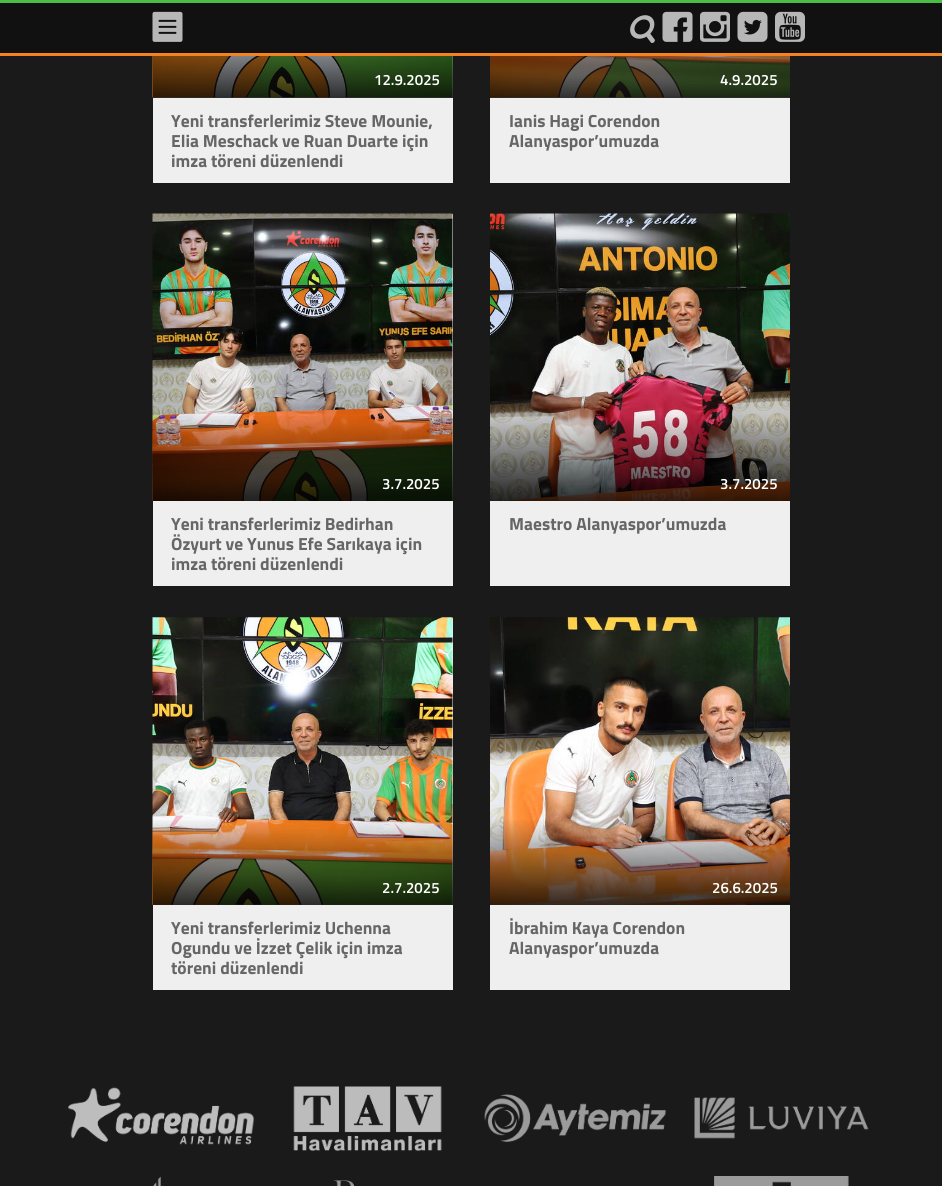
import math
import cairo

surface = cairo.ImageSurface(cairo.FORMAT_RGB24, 942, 1186)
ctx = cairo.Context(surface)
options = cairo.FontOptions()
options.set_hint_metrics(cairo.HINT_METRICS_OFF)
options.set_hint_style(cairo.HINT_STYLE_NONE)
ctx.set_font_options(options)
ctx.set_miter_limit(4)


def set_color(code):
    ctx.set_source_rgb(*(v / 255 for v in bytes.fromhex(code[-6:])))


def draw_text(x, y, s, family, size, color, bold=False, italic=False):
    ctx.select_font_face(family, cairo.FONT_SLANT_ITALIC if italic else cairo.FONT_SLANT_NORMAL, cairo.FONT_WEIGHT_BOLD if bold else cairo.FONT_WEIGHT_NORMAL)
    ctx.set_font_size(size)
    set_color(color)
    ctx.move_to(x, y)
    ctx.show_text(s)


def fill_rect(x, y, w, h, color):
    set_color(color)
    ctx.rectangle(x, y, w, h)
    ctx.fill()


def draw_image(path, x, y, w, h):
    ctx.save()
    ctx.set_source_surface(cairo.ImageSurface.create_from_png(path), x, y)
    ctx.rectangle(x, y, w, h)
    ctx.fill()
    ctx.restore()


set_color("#1a1a1a")
ctx.paint()
fill_rect(0, 3, 942, 50, "#111111")
fill_rect(0, 0, 942, 3, "#49bd46")
fill_rect(0, 53, 942, 3, "#f48220")
draw_image("assets/img1.png", 152, 11, 31, 31)
draw_image("assets/img2.png", 630, 15, 25, 28)
draw_image("assets/img3.png", 662, 11, 31, 31)
draw_image("assets/img4.png", 700, 11, 30, 31)
draw_image("assets/img5.png", 737, 11, 31, 31)
draw_image("assets/img6.png", 775, 11, 30, 31)
fill_rect(153, 56, 300, 127, "#efefef")
draw_image("assets/img7.png", 152, 56, 301, 42)
gradient = cairo.LinearGradient(303, 10, 303, 98)
gradient.add_color_stop_rgba(0, 0, 0, 0, 0)
gradient.add_color_stop_rgba(1, 0, 0, 0, 0.8)
ctx.set_source(gradient)
ctx.rectangle(153, 56, 300, 42)
ctx.fill()
draw_text(374, 85, "12.9.2025", "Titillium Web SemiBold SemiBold", 15, "#ffffff")
draw_text(171, 127, "Yeni transferlerimiz Steve Mounie,", "Titillium Web", 17.5, "#666666", bold=True)
draw_text(171, 147, "Elia Meschack ve Ruan Duarte için", "Titillium Web", 17.5, "#666666", bold=True)
draw_text(171, 167, "imza töreni düzenlendi", "Titillium Web", 17.5, "#666666", bold=True)
fill_rect(490, 97, 300, 86, "#efefef")
draw_image("assets/img8.png", 490, 56, 300, 42)
gradient = cairo.LinearGradient(640, 10, 640, 98)
gradient.add_color_stop_rgba(0, 0, 0, 0, 0)
gradient.add_color_stop_rgba(1, 0, 0, 0, 0.8)
ctx.set_source(gradient)
ctx.rectangle(490, 56, 300, 42)
ctx.fill()
draw_text(720, 85, "4.9.2025", "Titillium Web SemiBold SemiBold", 15, "#ffffff")
draw_text(509, 127, "Ianis Hagi Corendon", "Titillium Web", 17.5, "#666666", bold=True)
draw_text(509, 147, "Alanyaspor’umuzda", "Titillium Web", 17.5, "#666666", bold=True)
fill_rect(153, 214, 300, 372, "#efefef")
draw_image("assets/img9.png", 152, 213, 301, 288)
gradient = cairo.LinearGradient(303, 414, 303, 501)
gradient.add_color_stop_rgba(0, 0, 0, 0, 0)
gradient.add_color_stop_rgba(1, 0, 0, 0, 0.8)
ctx.set_source(gradient)
ctx.rectangle(153, 416, 300, 85)
ctx.fill()
draw_text(382, 489, "3.7.2025", "Titillium Web SemiBold SemiBold", 15, "#ffffff")
draw_text(171, 530, "Yeni transferlerimiz Bedirhan", "Titillium Web", 17.5, "#666666", bold=True)
draw_text(171, 550, "Özyurt ve Yunus Efe Sarıkaya için", "Titillium Web", 17.5, "#666666", bold=True)
draw_text(171, 570, "imza töreni düzenlendi", "Titillium Web", 17.5, "#666666", bold=True)
fill_rect(490, 501, 300, 85, "#efefef")
draw_image("assets/img10.png", 490, 213, 300, 288)
draw_text(720, 489, "3.7.2025", "Titillium Web SemiBold SemiBold", 15, "#ffffff")
draw_text(509, 530, "Maestro Alanyaspor’umuzda", "Titillium Web", 17.5, "#666666", bold=True)
fill_rect(153, 618, 300, 372, "#efefef")
draw_image("assets/img11.png", 152, 617, 301, 288)
gradient = cairo.LinearGradient(303, 818, 303, 905)
gradient.add_color_stop_rgba(0, 0, 0, 0, 0)
gradient.add_color_stop_rgba(1, 0, 0, 0, 0.8)
ctx.set_source(gradient)
ctx.rectangle(153, 820, 300, 85)
ctx.fill()
draw_text(382, 893, "2.7.2025", "Titillium Web SemiBold SemiBold", 15, "#ffffff")
draw_text(171, 934, "Yeni transferlerimiz Uchenna", "Titillium Web", 17.5, "#666666", bold=True)
draw_text(171, 954, "Ogundu ve İzzet Çelik için imza", "Titillium Web", 17.5, "#666666", bold=True)
draw_text(171, 974, "töreni düzenlendi", "Titillium Web", 17.5, "#666666", bold=True)
fill_rect(490, 904, 300, 86, "#efefef")
draw_image("assets/img12.png", 490, 617, 300, 288)
gradient = cairo.LinearGradient(640, 818, 640, 905)
gradient.add_color_stop_rgba(0, 0, 0, 0, 0)
gradient.add_color_stop_rgba(1, 0, 0, 0, 0.8)
ctx.set_source(gradient)
ctx.rectangle(490, 820, 300, 85)
ctx.fill()
draw_text(712, 893, "26.6.2025", "Titillium Web SemiBold SemiBold", 15, "#ffffff")
draw_text(509, 934, "İbrahim Kaya Corendon", "Titillium Web", 17.5, "#666666", bold=True)
draw_text(509, 954, "Alanyaspor’umuzda", "Titillium Web", 17.5, "#666666", bold=True)
draw_image("assets/img13.png", 68, 1087, 187, 58)
draw_image("assets/img14.png", 293, 1086, 149, 65)
draw_image("assets/img15.png", 484, 1094, 183, 48)
draw_image("assets/img16.png", 694, 1097, 175, 42)
draw_image("assets/img17.png", 153, 1176, 8, 10)
draw_image("assets/img18.png", 334, 1180, 20, 6)
draw_image("assets/img19.png", 714, 1176, 135, 10)
surface.write_to_png("output.png")
